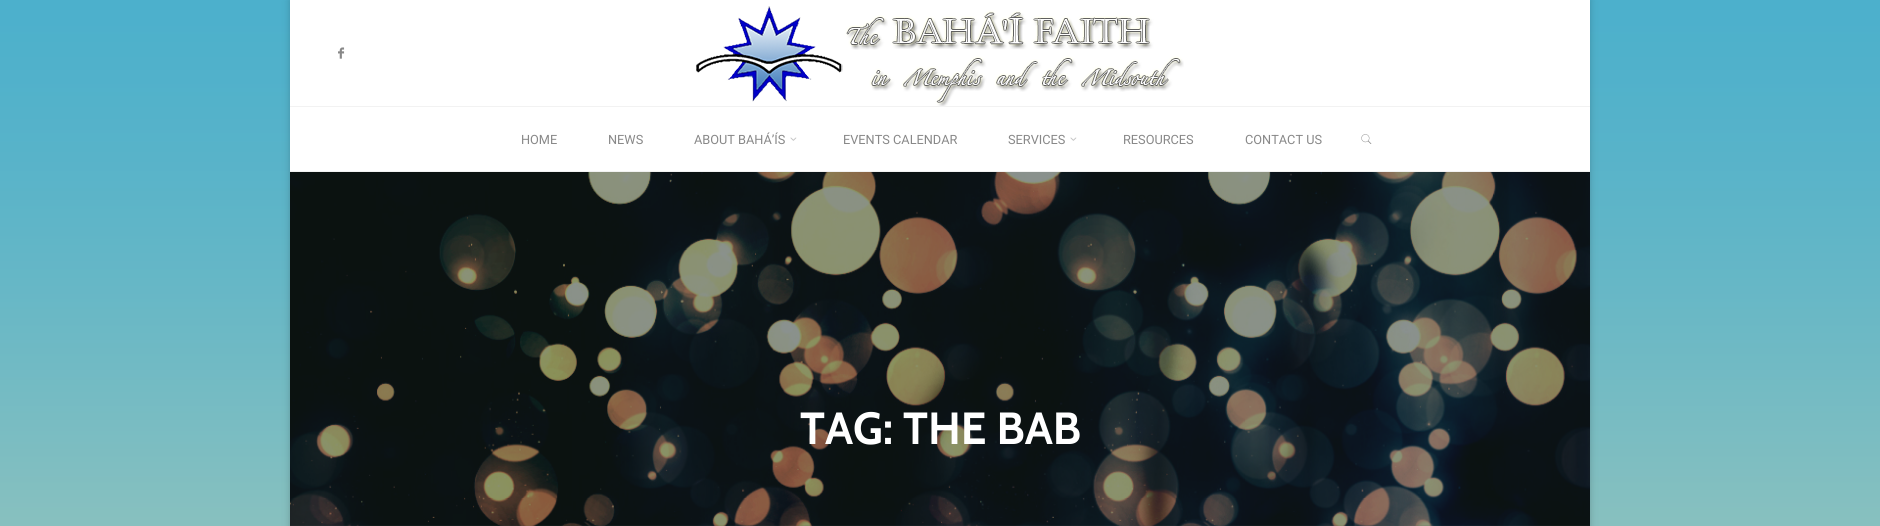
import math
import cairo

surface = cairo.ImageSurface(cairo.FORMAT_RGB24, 1880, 526)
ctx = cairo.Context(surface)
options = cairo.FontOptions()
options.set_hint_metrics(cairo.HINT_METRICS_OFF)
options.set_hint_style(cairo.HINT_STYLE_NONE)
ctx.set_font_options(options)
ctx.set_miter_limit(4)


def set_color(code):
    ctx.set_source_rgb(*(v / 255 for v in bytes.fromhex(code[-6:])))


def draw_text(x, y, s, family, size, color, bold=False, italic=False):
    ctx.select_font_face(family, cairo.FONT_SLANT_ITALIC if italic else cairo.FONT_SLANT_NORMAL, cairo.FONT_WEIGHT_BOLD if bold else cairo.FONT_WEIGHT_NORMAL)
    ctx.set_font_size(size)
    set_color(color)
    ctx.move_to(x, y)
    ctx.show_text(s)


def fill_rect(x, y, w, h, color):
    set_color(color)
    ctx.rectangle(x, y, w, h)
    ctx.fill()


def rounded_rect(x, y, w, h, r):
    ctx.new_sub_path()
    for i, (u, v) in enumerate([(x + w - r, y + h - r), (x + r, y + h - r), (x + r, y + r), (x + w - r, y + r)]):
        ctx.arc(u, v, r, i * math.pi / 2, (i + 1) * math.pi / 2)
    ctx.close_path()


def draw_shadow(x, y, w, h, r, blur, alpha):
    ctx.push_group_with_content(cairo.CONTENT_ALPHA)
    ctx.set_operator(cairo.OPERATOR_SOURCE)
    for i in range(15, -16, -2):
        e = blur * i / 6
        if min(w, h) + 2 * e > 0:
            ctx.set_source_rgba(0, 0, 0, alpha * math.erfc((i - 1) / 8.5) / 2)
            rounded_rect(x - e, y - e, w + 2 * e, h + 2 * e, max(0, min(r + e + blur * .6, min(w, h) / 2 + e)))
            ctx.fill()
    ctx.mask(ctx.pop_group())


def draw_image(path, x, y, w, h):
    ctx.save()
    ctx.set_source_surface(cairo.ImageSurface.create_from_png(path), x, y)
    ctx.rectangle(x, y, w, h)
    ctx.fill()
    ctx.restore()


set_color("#ffffff")
ctx.paint()
draw_image("assets/img1.png", 0, 0, 1880, 526)
set_color("#000000")
draw_shadow(290, 0, 1300, 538, 0, 4, 0.2)
fill_rect(290, 0, 1300, 171, "#ffffff")
draw_image("assets/img2.png", 338, 47, 7, 12)
draw_image("assets/img3.png", 696, 6, 488, 100)
fill_rect(290, 106, 1300, 1, "#f2f2f2")
fill_rect(290, 171, 1300, 1, "#f2f2f2")
draw_text(521, 144, "HOME", "Roboto", 12.75, "#888888")
draw_text(608, 144, "NEWS", "Roboto", 12.75, "#888888")
draw_text(694, 144, "ABOUT BAHÁ’ÍS", "Roboto", 12.75, "#888888")
draw_image("assets/img4.png", 790, 137, 7, 4)
draw_text(843, 144, "EVENTS CALENDAR", "Roboto", 12.75, "#888888")
draw_text(1008, 144, "SERVICES", "Roboto", 12.75, "#888888")
draw_image("assets/img4.png", 1070, 137, 7, 4)
draw_text(1123, 144, "RESOURCES", "Roboto", 12.75, "#888888")
draw_text(1245, 144, "CONTACT US", "Roboto", 12.75, "#888888")
draw_image("assets/img5.png", 1361, 134, 11, 10)
draw_image("assets/img6.png", 290, 172, 1300, 354)
ctx.set_source_rgba(0.086, 0.145, 0.129, 0.5)
ctx.rectangle(290, 172, 1300, 354)
ctx.fill()
draw_text(800, 444, "TAG: THE BAB", "Cabin", 45, "#ffffff", bold=True)
surface.write_to_png("output.png")
